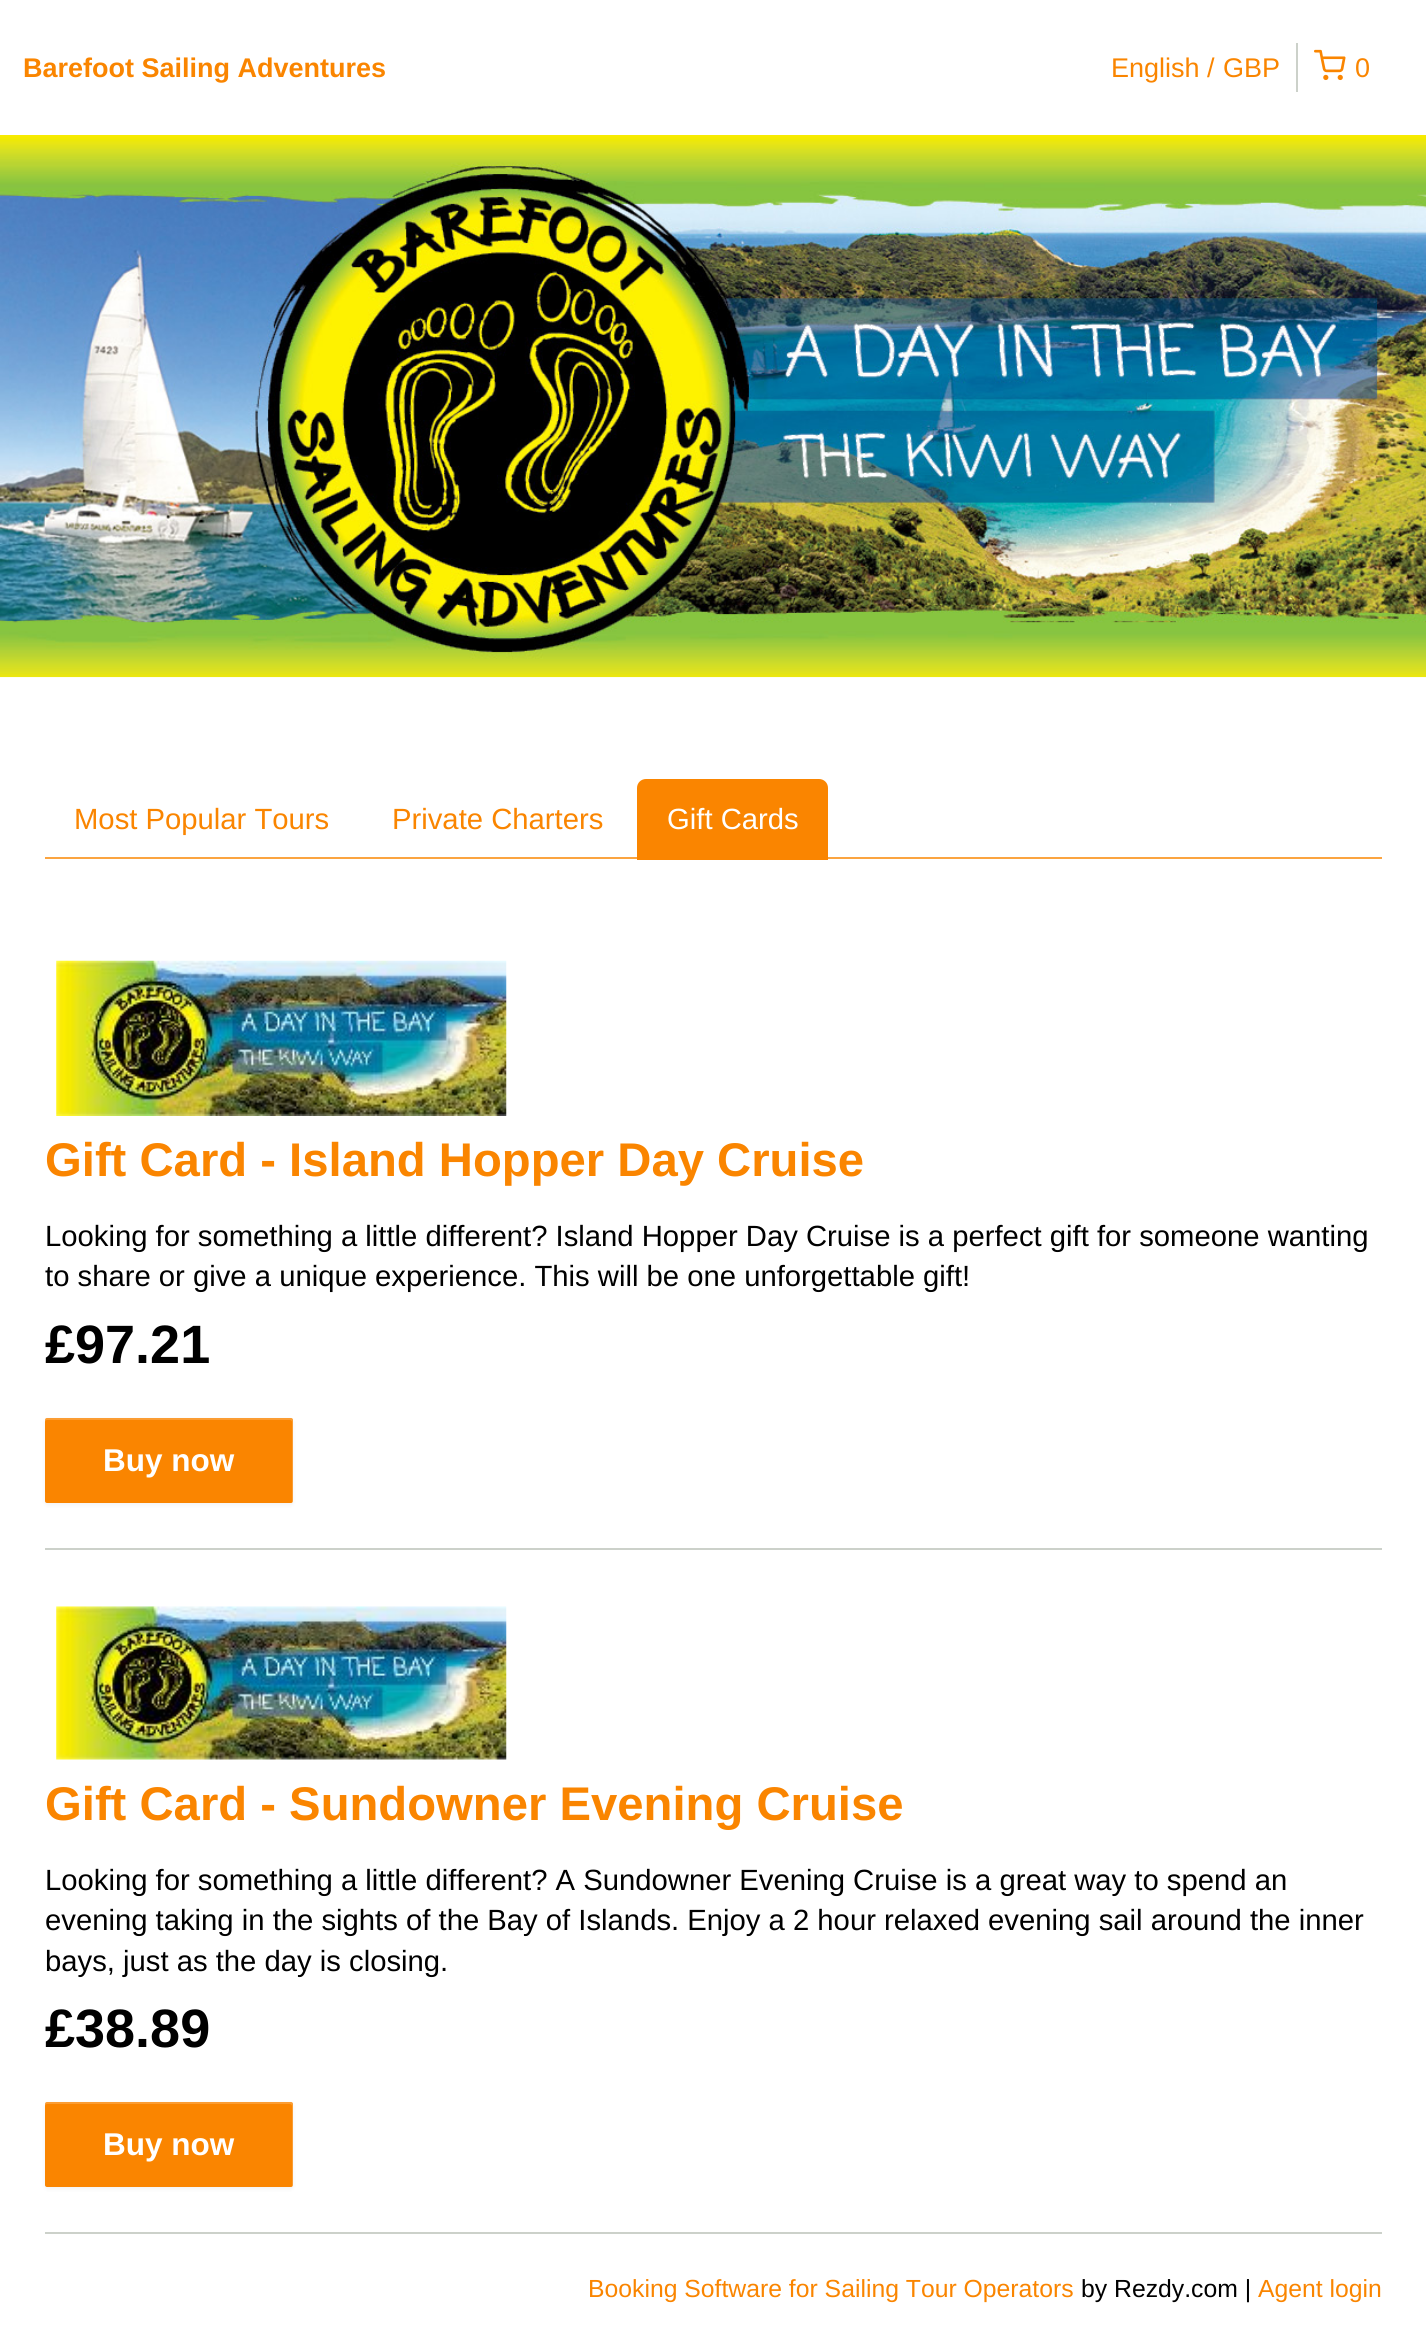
import math
import cairo

surface = cairo.ImageSurface(cairo.FORMAT_RGB24, 1426, 2343)
ctx = cairo.Context(surface)
options = cairo.FontOptions()
options.set_hint_metrics(cairo.HINT_METRICS_OFF)
options.set_hint_style(cairo.HINT_STYLE_NONE)
ctx.set_font_options(options)
ctx.set_miter_limit(4)


def set_color(code):
    ctx.set_source_rgb(*(v / 255 for v in bytes.fromhex(code[-6:])))


def draw_text(x, y, s, family, size, color, bold=False, italic=False):
    ctx.select_font_face(family, cairo.FONT_SLANT_ITALIC if italic else cairo.FONT_SLANT_NORMAL, cairo.FONT_WEIGHT_BOLD if bold else cairo.FONT_WEIGHT_NORMAL)
    ctx.set_font_size(size)
    set_color(color)
    ctx.move_to(x, y)
    ctx.show_text(s)


def fill_rect(x, y, w, h, color):
    set_color(color)
    ctx.rectangle(x, y, w, h)
    ctx.fill()


def rounded_rect(x, y, w, h, r):
    ctx.new_sub_path()
    for i, (u, v) in enumerate([(x + w - r, y + h - r), (x + r, y + h - r), (x + r, y + r), (x + w - r, y + r)]):
        ctx.arc(u, v, r, i * math.pi / 2, (i + 1) * math.pi / 2)
    ctx.close_path()


def draw_shadow(x, y, w, h, r, blur, alpha):
    ctx.push_group_with_content(cairo.CONTENT_ALPHA)
    ctx.set_operator(cairo.OPERATOR_SOURCE)
    for i in range(15, -16, -2):
        e = blur * i / 6
        if min(w, h) + 2 * e > 0:
            ctx.set_source_rgba(0, 0, 0, alpha * math.erfc((i - 1) / 8.5) / 2)
            rounded_rect(x - e, y - e, w + 2 * e, h + 2 * e, max(0, min(r + e + blur * .6, min(w, h) / 2 + e)))
            ctx.fill()
    ctx.mask(ctx.pop_group())


def draw_image(path, x, y, w, h):
    ctx.save()
    ctx.set_source_surface(cairo.ImageSurface.create_from_png(path), x, y)
    ctx.rectangle(x, y, w, h)
    ctx.fill()
    ctx.restore()


set_color("#ffffff")
ctx.paint()
draw_text(23, 77, "Barefoot Sailing Adventures", "Liberation Sans", 27, "#fa8500", bold=True)
fill_rect(1296, 43, 2, 49, "#ccd1ca")
draw_text(1111, 77, "English /", "Liberation Sans", 27, "#fa8500")
draw_text(1223, 77, "GBP", "Liberation Sans", 27, "#fa8500")
draw_image("assets/img1.png", 1314, 49, 32, 32)
draw_text(1355, 77, "0", "Liberation Sans", 27, "#fa8500")
draw_image("assets/img2.png", 0, 135, 1426, 543)
fill_rect(45, 857, 1337, 2, "#fba440")
draw_text(74, 829, "Most Popular Tours", "Liberation Sans", 29.25, "#fa8500")
draw_text(392, 829, "Private Charters", "Liberation Sans", 29.25, "#fa8500")
ctx.new_path()
ctx.move_to(646, 780)
ctx.line_to(819, 780)
ctx.curve_to(823.5, 780, 827, 783.5, 827, 788)
ctx.line_to(827, 859)
ctx.line_to(638, 859)
ctx.line_to(638, 788)
ctx.curve_to(638, 783.5, 641.5, 780, 646, 780)
ctx.close_path()
ctx.fill_preserve()
ctx.stroke()
draw_text(667, 829, "Gift Cards", "Liberation Sans", 29.25, "#ffffff")
fill_rect(45, 1548, 1337, 2, "#ccd1ca")
draw_image("assets/img3.png", 56, 960, 451, 156)
draw_text(45, 1176, "Gift Card - Island Hopper Day Cruise", "Liberation Sans", 47.25, "#fa8500", bold=True)
draw_text(45, 1246, "Looking for something a little different? Island Hopper Day Cruise is a perfect gift for someone wanting", "Liberation Sans", 29.25, "#000000")
draw_text(45, 1286, "to share or give a unique experience. This will be one unforgettable gift!", "Liberation Sans", 29.25, "#000000")
draw_text(45, 1363, "£97.21", "Liberation Sans", 54, "#000000", bold=True)
set_color("#000000")
draw_shadow(45, 1420, 248, 85, 2, 2, 0.05)
set_color("#fa8500")
rounded_rect(45, 1418, 248, 85, 2)
ctx.fill()
ctx.set_source_rgba(1, 1, 1, 0.2)
ctx.new_path()
ctx.move_to(47, 1420)
ctx.line_to(290, 1420)
ctx.curve_to(291, 1420, 292, 1421, 292, 1422)
ctx.line_to(292, 1503)
ctx.curve_to(293, 1502, 293, 1502, 293, 1501)
ctx.line_to(293, 1420)
ctx.curve_to(293, 1419, 292, 1418, 291, 1418)
ctx.line_to(47, 1418)
ctx.curve_to(46, 1418, 45, 1419, 45, 1420)
ctx.line_to(45, 1422)
ctx.curve_to(45, 1421, 46, 1420, 47, 1420)
ctx.close_path()
ctx.fill()
draw_text(103, 1471, "Buy now", "Liberation Sans", 31.5, "#ffffff", bold=True)
fill_rect(45, 2232, 1337, 2, "#ccd1ca")
draw_image("assets/img4.png", 56, 1606, 451, 154)
draw_text(45, 1820, "Gift Card - Sundowner Evening Cruise", "Liberation Sans", 47.25, "#fa8500", bold=True)
draw_text(45, 1890, "Looking for something a little different? A Sundowner Evening Cruise is a great way to spend an", "Liberation Sans", 29.25, "#000000")
draw_text(45, 1930, "evening taking in the sights of the Bay of Islands. Enjoy a 2 hour relaxed evening sail around the inner", "Liberation Sans", 29.25, "#000000")
draw_text(45, 1971, "bays, just as the day is closing.", "Liberation Sans", 29.25, "#000000")
draw_text(45, 2047, "£38.89", "Liberation Sans", 54, "#000000", bold=True)
set_color("#000000")
draw_shadow(45, 2104, 248, 85, 2, 2, 0.05)
set_color("#fa8500")
rounded_rect(45, 2102, 248, 85, 2)
ctx.fill()
ctx.set_source_rgba(1, 1, 1, 0.2)
ctx.new_path()
ctx.move_to(47, 2104)
ctx.line_to(290, 2104)
ctx.curve_to(291, 2104, 292, 2105, 292, 2106)
ctx.line_to(292, 2187)
ctx.curve_to(293, 2186, 293, 2186, 293, 2185)
ctx.line_to(293, 2104)
ctx.curve_to(293, 2103, 292, 2102, 291, 2102)
ctx.line_to(47, 2102)
ctx.curve_to(46, 2102, 45, 2103, 45, 2104)
ctx.line_to(45, 2106)
ctx.curve_to(45, 2105, 46, 2104, 47, 2104)
ctx.close_path()
ctx.fill()
draw_text(103, 2155, "Buy now", "Liberation Sans", 31.5, "#ffffff", bold=True)
draw_text(588, 2297, "Booking Software for Sailing Tour Operators", "Liberation Sans", 24.75, "#fa8500")
draw_text(1081, 2297, "by Rezdy.com |", "Liberation Sans", 24.75, "#000000")
draw_text(1258, 2297, "Agent login", "Liberation Sans", 24.75, "#fa8500")
surface.write_to_png("output.png")
